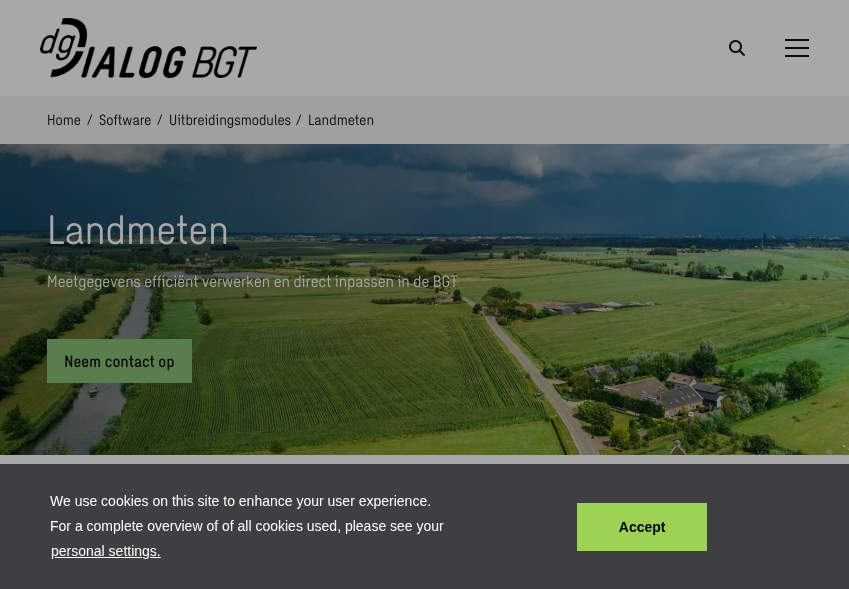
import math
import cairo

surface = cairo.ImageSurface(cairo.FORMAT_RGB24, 849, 589)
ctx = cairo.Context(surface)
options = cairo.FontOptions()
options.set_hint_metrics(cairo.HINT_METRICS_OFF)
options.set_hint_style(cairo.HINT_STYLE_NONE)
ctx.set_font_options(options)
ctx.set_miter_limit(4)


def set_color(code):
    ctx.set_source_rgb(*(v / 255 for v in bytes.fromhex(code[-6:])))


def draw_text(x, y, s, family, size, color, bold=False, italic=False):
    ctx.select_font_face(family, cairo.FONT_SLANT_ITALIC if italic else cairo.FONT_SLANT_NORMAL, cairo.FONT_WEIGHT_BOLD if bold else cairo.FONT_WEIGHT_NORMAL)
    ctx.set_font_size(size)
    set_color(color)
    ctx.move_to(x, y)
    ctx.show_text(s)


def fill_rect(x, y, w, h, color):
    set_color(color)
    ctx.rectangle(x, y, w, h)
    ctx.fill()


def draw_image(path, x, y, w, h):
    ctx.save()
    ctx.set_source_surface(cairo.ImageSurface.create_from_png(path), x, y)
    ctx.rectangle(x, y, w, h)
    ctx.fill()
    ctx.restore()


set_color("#a8a8a8")
ctx.paint()
draw_image("assets/img1.png", 40, 18, 217, 60)
draw_image("assets/img2.png", 729, 40, 16, 16)
fill_rect(785, 39, 24, 2, "#0b0b0b")
fill_rect(785, 47, 24, 2, "#0b0b0b")
fill_rect(785, 55, 24, 2, "#0b0b0b")
fill_rect(0, 96, 849, 48, "#a0a0a0")
draw_text(47, 125, "Home", "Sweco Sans", 14.5, "#0b0b0b")
draw_text(87, 125, "/", "Sweco Sans", 14.5, "#0b0b0b")
draw_text(99, 125, "Software", "Sweco Sans", 14.5, "#0b0b0b")
draw_text(157, 125, "/", "Sweco Sans", 14.5, "#0b0b0b")
draw_text(169, 125, "Uitbreidingsmodules", "Sweco Sans", 14.5, "#0b0b0b")
draw_text(296, 125, "/", "Sweco Sans", 14.5, "#0b0b0b")
draw_text(308, 125, "Landmeten", "Sweco Sans", 14.5, "#0b0b0b")
draw_image("assets/img3.png", 0, 144, 849, 311)
draw_text(47, 244, "Landmeten", "Sweco Sans", 40, "#a8a8a8")
draw_text(47, 287, "Meetgegevens efficiënt verwerken en direct inpassen in de BGT", "Sweco Sans", 16, "#a8a8a8")
fill_rect(47, 339, 145, 44, "#597d4c")
draw_text(64, 367, "Neem contact op", "Sweco Sans Medium", 16, "#0b0b0b")
draw_image("assets/img4.png", 0, 464, 849, 125)
surface.write_to_png("output.png")
